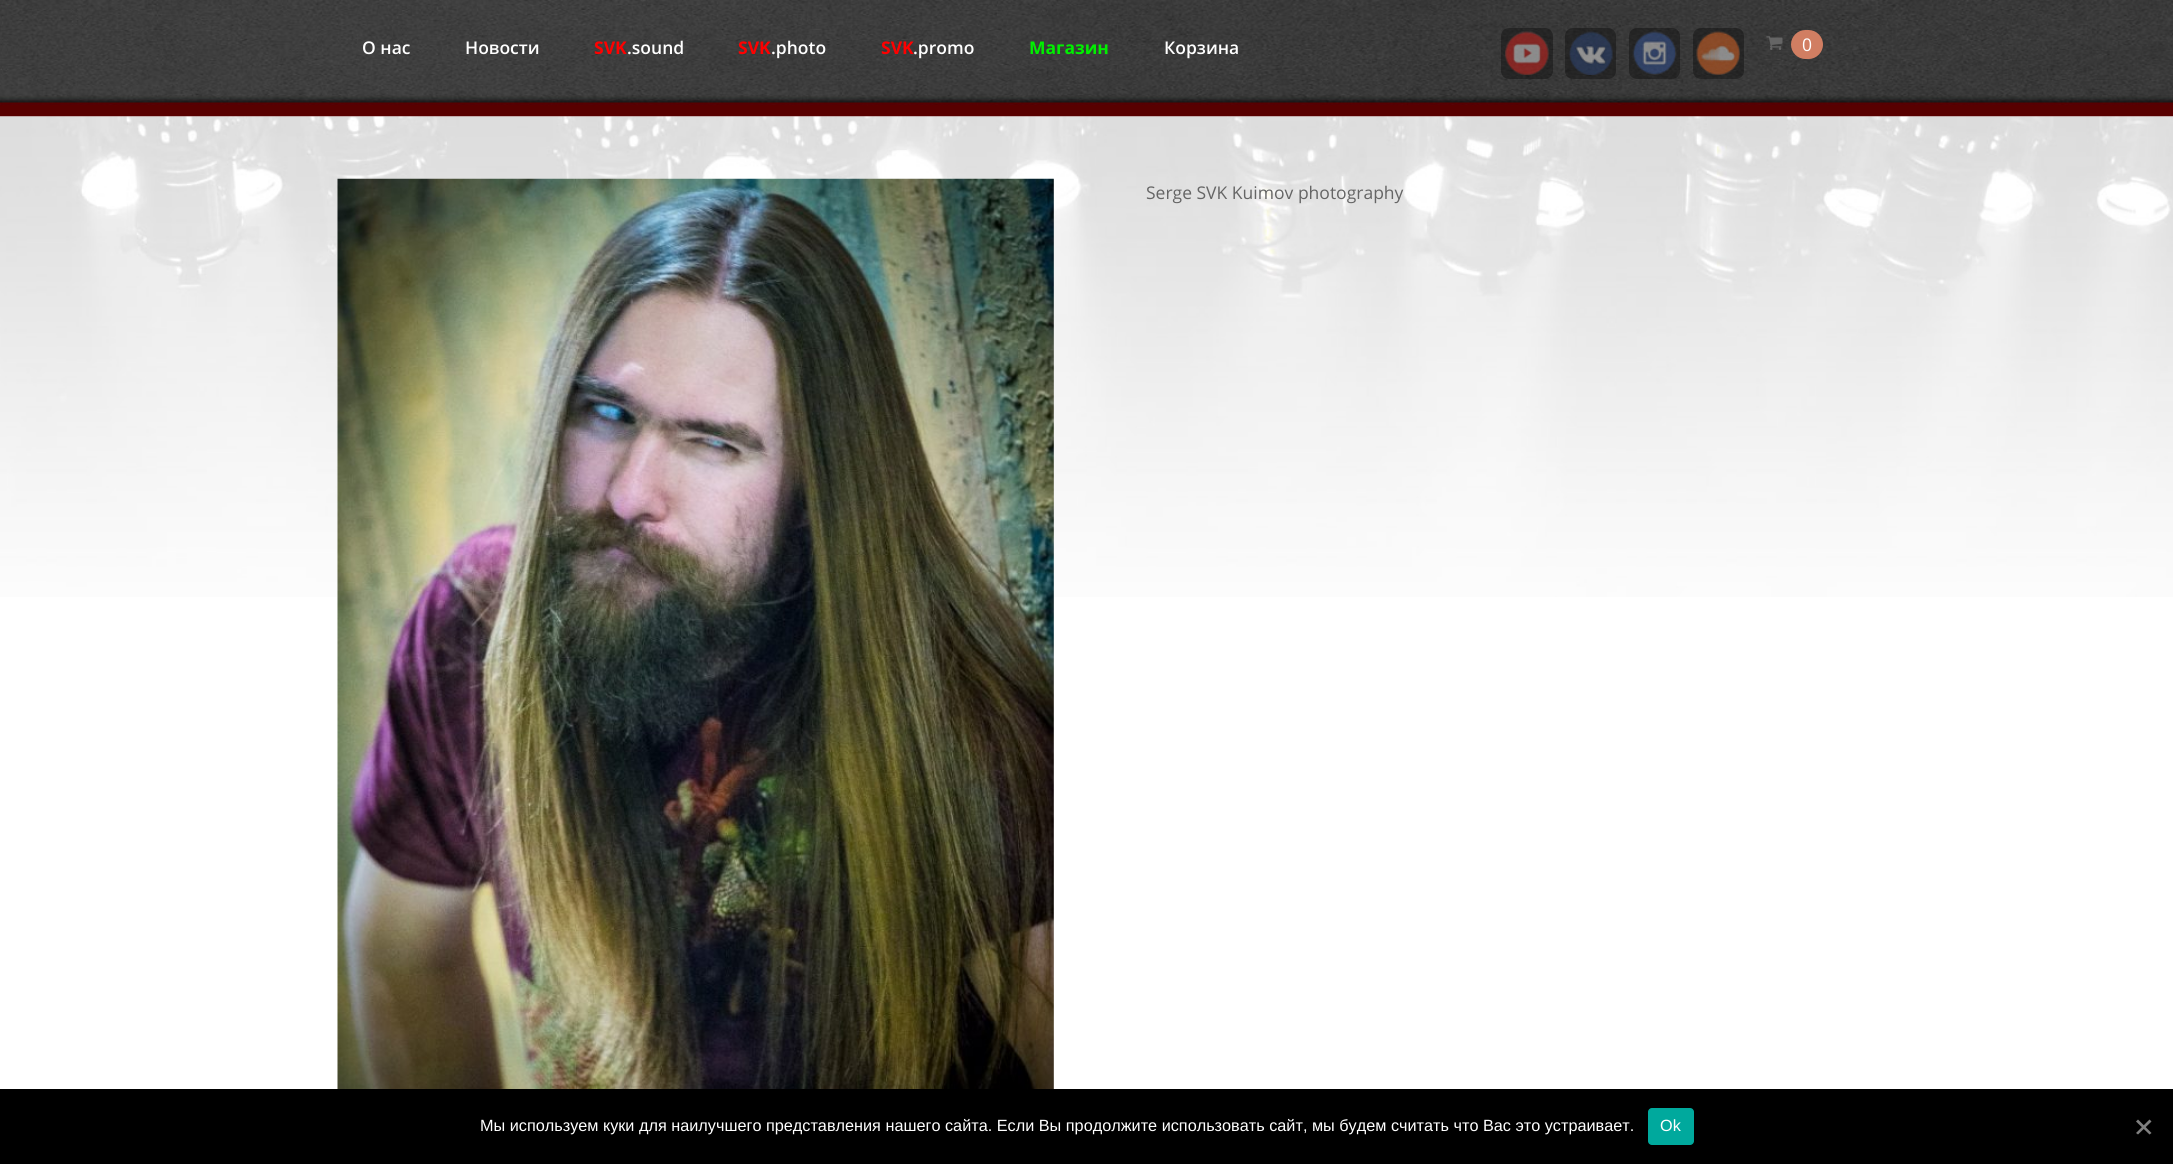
import math
import cairo

surface = cairo.ImageSurface(cairo.FORMAT_RGB24, 2173, 1164)
ctx = cairo.Context(surface)
options = cairo.FontOptions()
options.set_hint_metrics(cairo.HINT_METRICS_OFF)
options.set_hint_style(cairo.HINT_STYLE_NONE)
ctx.set_font_options(options)
ctx.set_miter_limit(4)


def set_color(code):
    ctx.set_source_rgb(*(v / 255 for v in bytes.fromhex(code[-6:])))


def draw_text(x, y, s, family, size, color, bold=False, italic=False):
    ctx.select_font_face(family, cairo.FONT_SLANT_ITALIC if italic else cairo.FONT_SLANT_NORMAL, cairo.FONT_WEIGHT_BOLD if bold else cairo.FONT_WEIGHT_NORMAL)
    ctx.set_font_size(size)
    set_color(color)
    ctx.move_to(x, y)
    ctx.show_text(s)


def fill_rect(x, y, w, h, color):
    set_color(color)
    ctx.rectangle(x, y, w, h)
    ctx.fill()


def rounded_rect(x, y, w, h, r):
    ctx.new_sub_path()
    for i, (u, v) in enumerate([(x + w - r, y + h - r), (x + r, y + h - r), (x + r, y + r), (x + w - r, y + r)]):
        ctx.arc(u, v, r, i * math.pi / 2, (i + 1) * math.pi / 2)
    ctx.close_path()


def draw_image(path, x, y, w, h):
    ctx.save()
    ctx.set_source_surface(cairo.ImageSurface.create_from_png(path), x, y)
    ctx.rectangle(x, y, w, h)
    ctx.fill()
    ctx.restore()


set_color("#ffffff")
ctx.paint()
draw_image("assets/img7.png", 0, 116, 2173, 481)
draw_image("assets/img1.png", 0, 0, 2173, 117)
draw_text(362, 54, "О нас", "Open Sans SemiBold", 17.5, "#ffffff")
draw_text(465, 54, "Новости", "Open Sans SemiBold", 17.5, "#ffffff")
draw_text(594, 54, "SVK", "Open Sans", 17.5, "#ff0000", bold=True)
draw_text(627, 54, ".sound", "Open Sans SemiBold", 17.5, "#ffffff")
draw_text(738, 54, "SVK", "Open Sans", 17.5, "#ff0000", bold=True)
draw_text(771, 54, ".photo", "Open Sans SemiBold", 17.5, "#ffffff")
draw_text(881, 54, "SVK", "Open Sans", 17.5, "#ff0000", bold=True)
draw_text(913, 54, ".promo", "Open Sans SemiBold", 17.5, "#ffffff")
draw_text(1029, 54, "Магазин", "Open Sans", 17.5, "#00f000", bold=True)
draw_text(1164, 54, "Корзина", "Open Sans SemiBold", 17.5, "#ffffff")
ctx.set_source_rgba(0, 0, 0, 0.35)
rounded_rect(1501, 28, 52, 51, 8)
ctx.fill()
draw_image("assets/img2.png", 1505, 31, 44, 44)
rounded_rect(1565, 28, 51, 51, 8)
ctx.fill()
draw_image("assets/img3.png", 1569, 31, 44, 44)
rounded_rect(1629, 28, 51, 51, 8)
ctx.fill()
draw_image("assets/img4.png", 1632, 31, 45, 44)
rounded_rect(1693, 28, 51, 51, 8)
ctx.fill()
draw_image("assets/img5.png", 1696, 31, 44, 44)
draw_image("assets/img6.png", 1766, 36, 17, 14)
set_color("#d17e62")
rounded_rect(1791, 30, 32, 29, 14.5)
ctx.fill()
draw_text(1802, 51, "0", "Open Sans", 17.5, "#ffffff")
ctx.rectangle(338.5, 179.5, 715, 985)
ctx.set_source_rgba(0, 0, 0, 0.2)
ctx.set_line_width(1)
ctx.stroke()
draw_image("assets/img8.png", 337, 178, 717, 911)
draw_text(1146, 199, "Serge SVK Kuimov photography", "Open Sans", 17.5, "#656565")
fill_rect(0, 1089, 2173, 75, "#000000")
draw_text(480, 1131, "Мы используем куки для наилучшего представления нашего сайта. Если Вы продолжите использовать сайт, мы будем считать что Вас это устраивает.", "Liberation Sans", 16.25, "#ffffff")
set_color("#00a99d")
rounded_rect(1648, 1108, 46, 37, 4)
ctx.fill()
draw_text(1660, 1131, "Ok", "Liberation Sans", 16.25, "#ffffff")
set_color("#808080")
ctx.new_path()
ctx.move_to(2149.5, 1119.5)
ctx.line_to(2151.5, 1121.5)
ctx.line_to(2138, 1134.5)
ctx.line_to(2136, 1133)
ctx.close_path()
ctx.fill()
ctx.new_path()
ctx.move_to(2136, 1121.5)
ctx.line_to(2138, 1119.5)
ctx.line_to(2151.5, 1133)
ctx.line_to(2149.5, 1134.5)
ctx.close_path()
ctx.fill()
surface.write_to_png("output.png")
